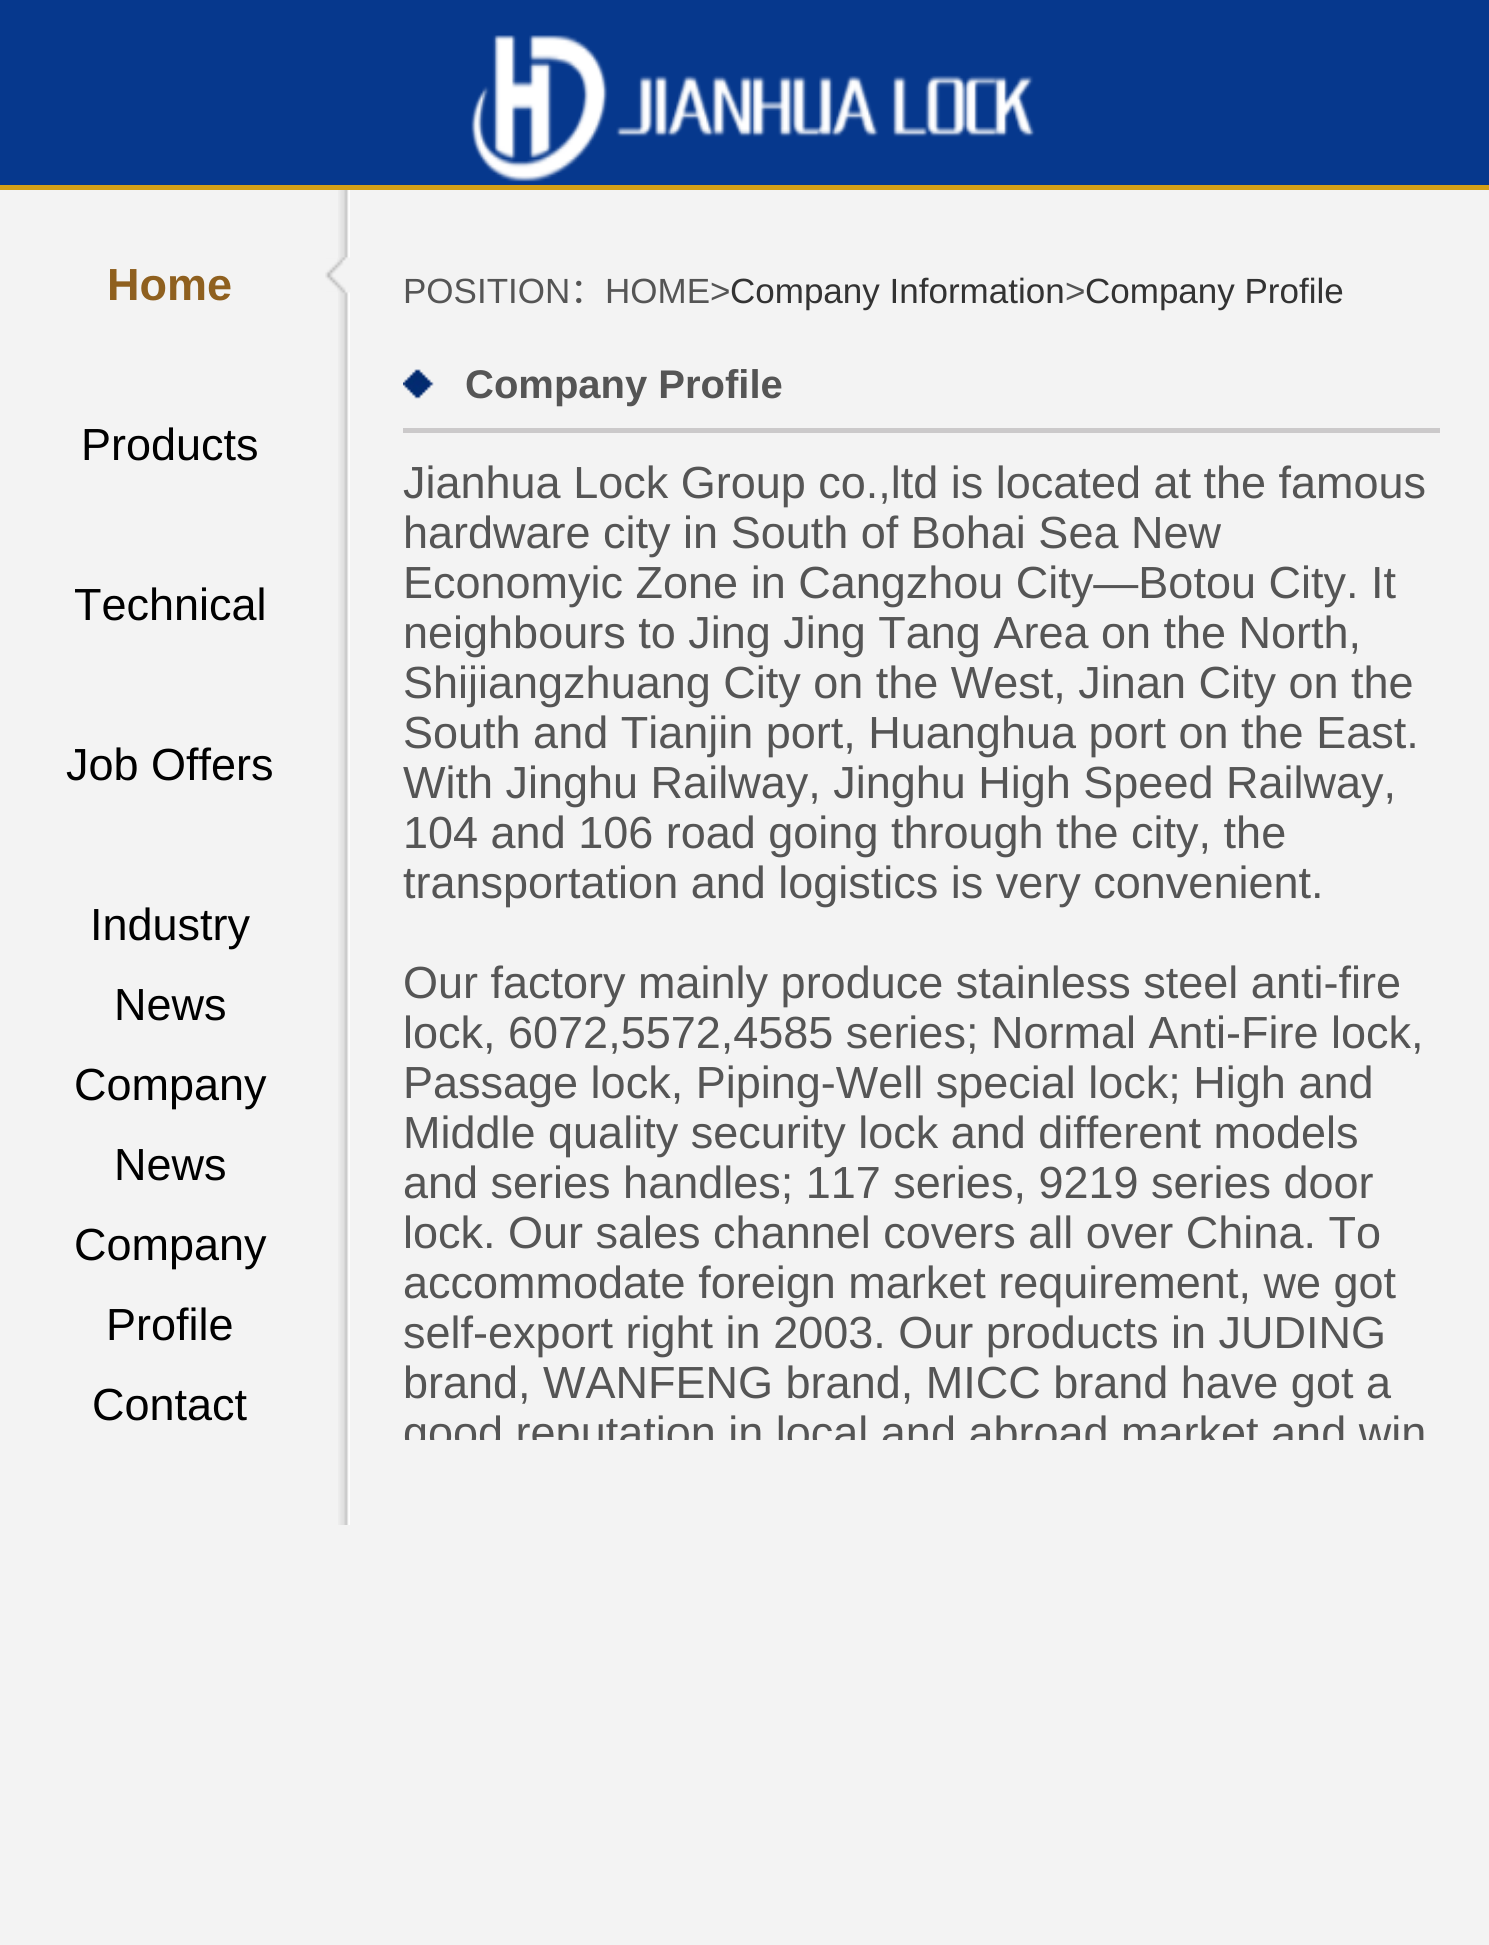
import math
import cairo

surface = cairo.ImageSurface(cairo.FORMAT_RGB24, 1489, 1945)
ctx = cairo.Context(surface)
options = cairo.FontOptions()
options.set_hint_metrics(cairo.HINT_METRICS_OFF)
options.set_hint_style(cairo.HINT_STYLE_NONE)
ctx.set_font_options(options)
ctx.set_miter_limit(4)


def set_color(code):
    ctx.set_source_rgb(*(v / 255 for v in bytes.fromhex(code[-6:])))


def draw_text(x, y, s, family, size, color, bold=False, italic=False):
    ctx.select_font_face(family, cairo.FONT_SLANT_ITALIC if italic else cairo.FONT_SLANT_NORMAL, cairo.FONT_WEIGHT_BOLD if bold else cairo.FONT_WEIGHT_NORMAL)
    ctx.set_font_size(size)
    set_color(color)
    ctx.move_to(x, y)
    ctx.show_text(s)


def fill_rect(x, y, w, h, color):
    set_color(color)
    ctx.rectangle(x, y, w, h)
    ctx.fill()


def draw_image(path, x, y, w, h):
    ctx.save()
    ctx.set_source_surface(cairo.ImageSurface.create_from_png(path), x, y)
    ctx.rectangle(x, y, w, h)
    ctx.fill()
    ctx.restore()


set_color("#f3f3f3")
ctx.paint()
fill_rect(0, 0, 1489, 185, "#06388d")
fill_rect(0, 185, 1489, 5, "#d4a017")
draw_image("assets/img1.png", 471, 35, 564, 147)
draw_image("assets/img2.png", 338, 190, 12, 1335)
draw_text(107, 300, "Home", "Liberation Sans", 45, "#8f601f", bold=True)
draw_text(81, 460, "Products", "Liberation Sans", 45, "#000000")
draw_text(74, 620, "Technical", "Liberation Sans", 45, "#000000")
draw_text(66, 780, "Job Offers", "Liberation Sans", 45, "#000000")
draw_text(90, 940, "Industry", "Liberation Sans", 45, "#000000")
draw_text(114, 1020, "News", "Liberation Sans", 45, "#000000")
draw_text(74, 1100, "Company", "Liberation Sans", 45, "#000000")
draw_text(114, 1180, "News", "Liberation Sans", 45, "#000000")
draw_text(74, 1260, "Company", "Liberation Sans", 45, "#000000")
draw_text(106, 1340, "Profile", "Liberation Sans", 45, "#000000")
draw_text(92, 1420, "Contact", "Liberation Sans", 45, "#000000")
draw_image("assets/img3.png", 325, 257, 25, 37)
draw_text(403, 303, "POSITION", "Liberation Sans", 35, "#555555")
draw_text(570, 303, "：", "Noto Sans CJK SC", 35, "#555555")
draw_text(605, 303, "HOME>", "Liberation Sans", 35, "#555555")
draw_text(730, 303, "Company Information", "Liberation Sans", 35, "#333333")
draw_text(1065, 303, ">", "Liberation Sans", 35, "#555555")
draw_text(1085, 303, "Company Profile", "Liberation Sans", 35, "#333333")
draw_image("assets/img4.png", 403, 369, 31, 30)
fill_rect(403, 428, 1037, 5, "#cbc9ca")
draw_text(465, 398, "Company Profile", "Liberation Sans", 40, "#555555", bold=True)
draw_text(403, 498, "Jianhua Lock Group co.,ltd is located at the famous", "Liberation Sans", 45, "#555555")
draw_text(403, 548, "hardware city in South of Bohai Sea New", "Liberation Sans", 45, "#555555")
draw_text(403, 598, "Economyic Zone in Cangzhou City—Botou City. It", "Liberation Sans", 45, "#555555")
draw_text(403, 648, "neighbours to Jing Jing Tang Area on the North,", "Liberation Sans", 45, "#555555")
draw_text(403, 698, "Shijiangzhuang City on the West, Jinan City on the", "Liberation Sans", 45, "#555555")
draw_text(403, 748, "South and Tianjin port, Huanghua port on the East.", "Liberation Sans", 45, "#555555")
draw_text(403, 798, "With Jinghu Railway, Jinghu High Speed Railway,", "Liberation Sans", 45, "#555555")
draw_text(403, 848, "104 and 106 road going through the city, the", "Liberation Sans", 45, "#555555")
draw_text(403, 898, "transportation and logistics is very convenient.", "Liberation Sans", 45, "#555555")
draw_text(403, 998, "Our factory mainly produce stainless steel anti-fire", "Liberation Sans", 45, "#555555")
draw_text(403, 1048, "lock, 6072,5572,4585 series; Normal Anti-Fire lock,", "Liberation Sans", 45, "#555555")
draw_text(403, 1098, "Passage lock, Piping-Well special lock; High and", "Liberation Sans", 45, "#555555")
draw_text(403, 1148, "Middle quality security lock and different models", "Liberation Sans", 45, "#555555")
draw_text(403, 1198, "and series handles; 117 series, 9219 series door", "Liberation Sans", 45, "#555555")
draw_text(403, 1248, "lock. Our sales channel covers all over China. To", "Liberation Sans", 45, "#555555")
draw_text(403, 1298, "accommodate foreign market requirement, we got", "Liberation Sans", 45, "#555555")
draw_text(403, 1348, "self-export right in 2003. Our products in JUDING", "Liberation Sans", 45, "#555555")
draw_text(403, 1398, "brand, WANFENG brand, MICC brand have got a", "Liberation Sans", 45, "#555555")
ctx.save()
ctx.rectangle(403, 240, 1037, 1200)
ctx.clip()
draw_text(403, 1448, "good reputation in local and abroad market and win", "Liberation Sans", 45, "#555555")
ctx.restore()
surface.write_to_png("output.png")
